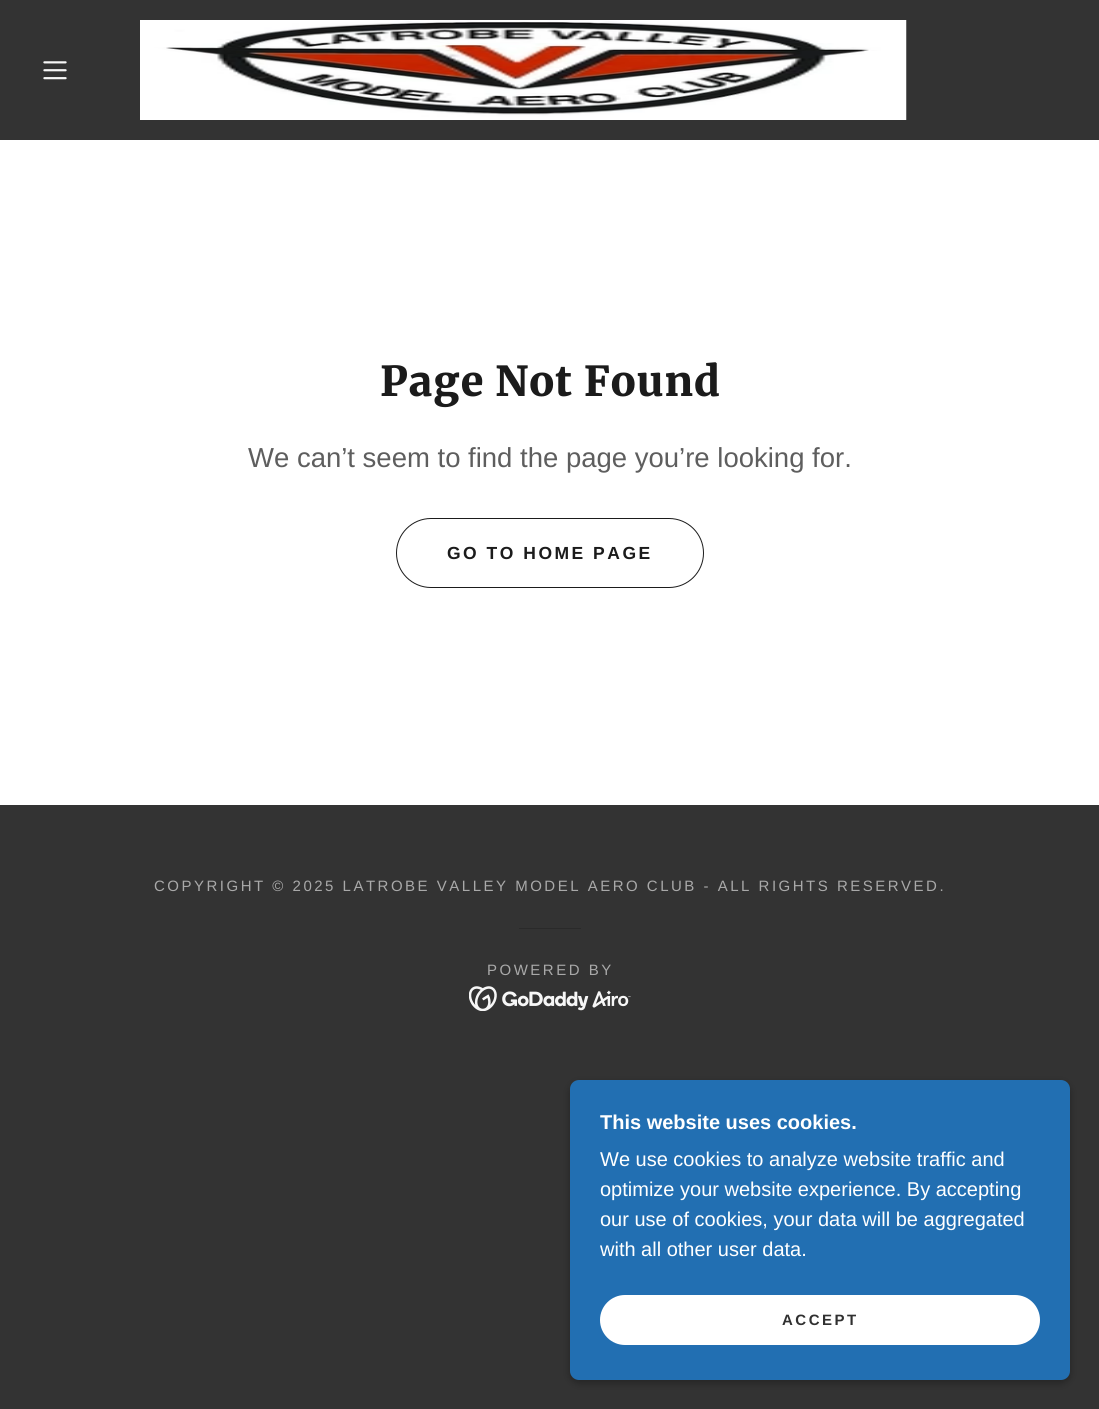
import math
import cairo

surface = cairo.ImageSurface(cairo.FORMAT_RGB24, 1099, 1409)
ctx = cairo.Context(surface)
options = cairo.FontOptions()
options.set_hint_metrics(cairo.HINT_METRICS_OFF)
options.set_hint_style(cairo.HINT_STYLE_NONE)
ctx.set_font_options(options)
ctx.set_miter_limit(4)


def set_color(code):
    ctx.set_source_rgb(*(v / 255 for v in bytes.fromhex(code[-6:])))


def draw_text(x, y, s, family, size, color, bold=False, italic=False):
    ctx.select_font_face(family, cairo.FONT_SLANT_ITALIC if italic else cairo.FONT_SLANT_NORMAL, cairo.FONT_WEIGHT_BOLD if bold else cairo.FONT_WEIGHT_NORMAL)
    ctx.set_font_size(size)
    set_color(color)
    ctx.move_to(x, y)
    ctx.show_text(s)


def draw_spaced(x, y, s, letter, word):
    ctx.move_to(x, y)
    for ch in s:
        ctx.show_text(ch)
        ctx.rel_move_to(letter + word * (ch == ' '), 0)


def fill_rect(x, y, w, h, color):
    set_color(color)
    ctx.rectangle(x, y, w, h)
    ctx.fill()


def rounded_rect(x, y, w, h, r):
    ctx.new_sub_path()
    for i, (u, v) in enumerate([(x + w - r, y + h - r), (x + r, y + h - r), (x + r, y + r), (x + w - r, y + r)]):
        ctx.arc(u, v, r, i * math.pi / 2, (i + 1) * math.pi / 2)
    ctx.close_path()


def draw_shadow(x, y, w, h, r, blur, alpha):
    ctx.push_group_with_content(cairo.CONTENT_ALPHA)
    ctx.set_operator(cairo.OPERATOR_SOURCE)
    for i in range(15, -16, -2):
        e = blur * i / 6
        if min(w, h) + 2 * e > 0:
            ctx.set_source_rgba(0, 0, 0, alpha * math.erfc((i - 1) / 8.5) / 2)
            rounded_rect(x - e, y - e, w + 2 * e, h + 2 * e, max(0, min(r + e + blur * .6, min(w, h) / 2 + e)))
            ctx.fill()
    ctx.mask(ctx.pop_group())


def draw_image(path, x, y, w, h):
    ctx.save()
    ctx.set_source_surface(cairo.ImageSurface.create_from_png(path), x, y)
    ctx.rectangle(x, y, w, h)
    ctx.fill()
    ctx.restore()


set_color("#333333")
ctx.paint()
draw_image("assets/img1.png", 43, 61, 24, 19)
draw_image("assets/img2.png", 140, 20, 767, 100)
fill_rect(0, 140, 1099, 665, "#ffffff")
ctx.select_font_face("Merriweather Light")
ctx.set_font_size(41.25)
set_color("#1b1b1b")
draw_spaced(380, 396, "Page Not Found", 1, 0)
draw_text(248, 467, "We can’t seem to find the page you’re looking for.", "Liberation Sans", 27.5, "#5e5e5e")
rounded_rect(396.5, 518.5, 307, 69, 34.5)
set_color("#1b1b1b")
ctx.set_line_width(1)
ctx.stroke()
ctx.select_font_face("Liberation Sans", cairo.FONT_SLANT_NORMAL, cairo.FONT_WEIGHT_BOLD)
ctx.set_font_size(17.5)
draw_spaced(447, 559, "GO TO HOME PAGE", 2.5, 0)
ctx.select_font_face("Liberation Sans")
ctx.set_font_size(15)
set_color("#a9a9a9")
draw_spaced(154, 891, "COPYRIGHT © 2025 LATROBE VALLEY MODEL AERO CLUB - ALL RIGHTS RESERVED.", 2.5, 0)
fill_rect(519, 928, 62, 1, "#2a2a2a")
set_color("#a9a9a9")
draw_spaced(487, 975, "POWERED BY", 2.5, 0)
draw_image("assets/img3.png", 469, 986, 162, 25)
set_color("#000000")
draw_shadow(570, 1083, 500, 300, 9, 4, 0.3)
set_color("#226fb2")
rounded_rect(570, 1080, 500, 300, 9)
ctx.fill()
draw_text(600, 1129, "This website uses cookies.", "Liberation Sans", 20, "#ffffff", bold=True)
draw_text(600, 1166, "We use cookies to analyze website traffic and", "Liberation Sans", 20, "#ffffff")
draw_text(600, 1196, "optimize your website experience. By accepting", "Liberation Sans", 20, "#ffffff")
draw_text(600, 1226, "our use of cookies, your data will be aggregated", "Liberation Sans", 20, "#ffffff")
draw_text(600, 1256, "with all other user data.", "Liberation Sans", 20, "#ffffff")
rounded_rect(600, 1295, 440, 50, 25)
ctx.fill()
ctx.select_font_face("Liberation Sans", cairo.FONT_SLANT_NORMAL, cairo.FONT_WEIGHT_BOLD)
ctx.set_font_size(15)
set_color("#303030")
draw_spaced(782, 1325, "ACCEPT", 2.5, 0)
surface.write_to_png("output.png")
